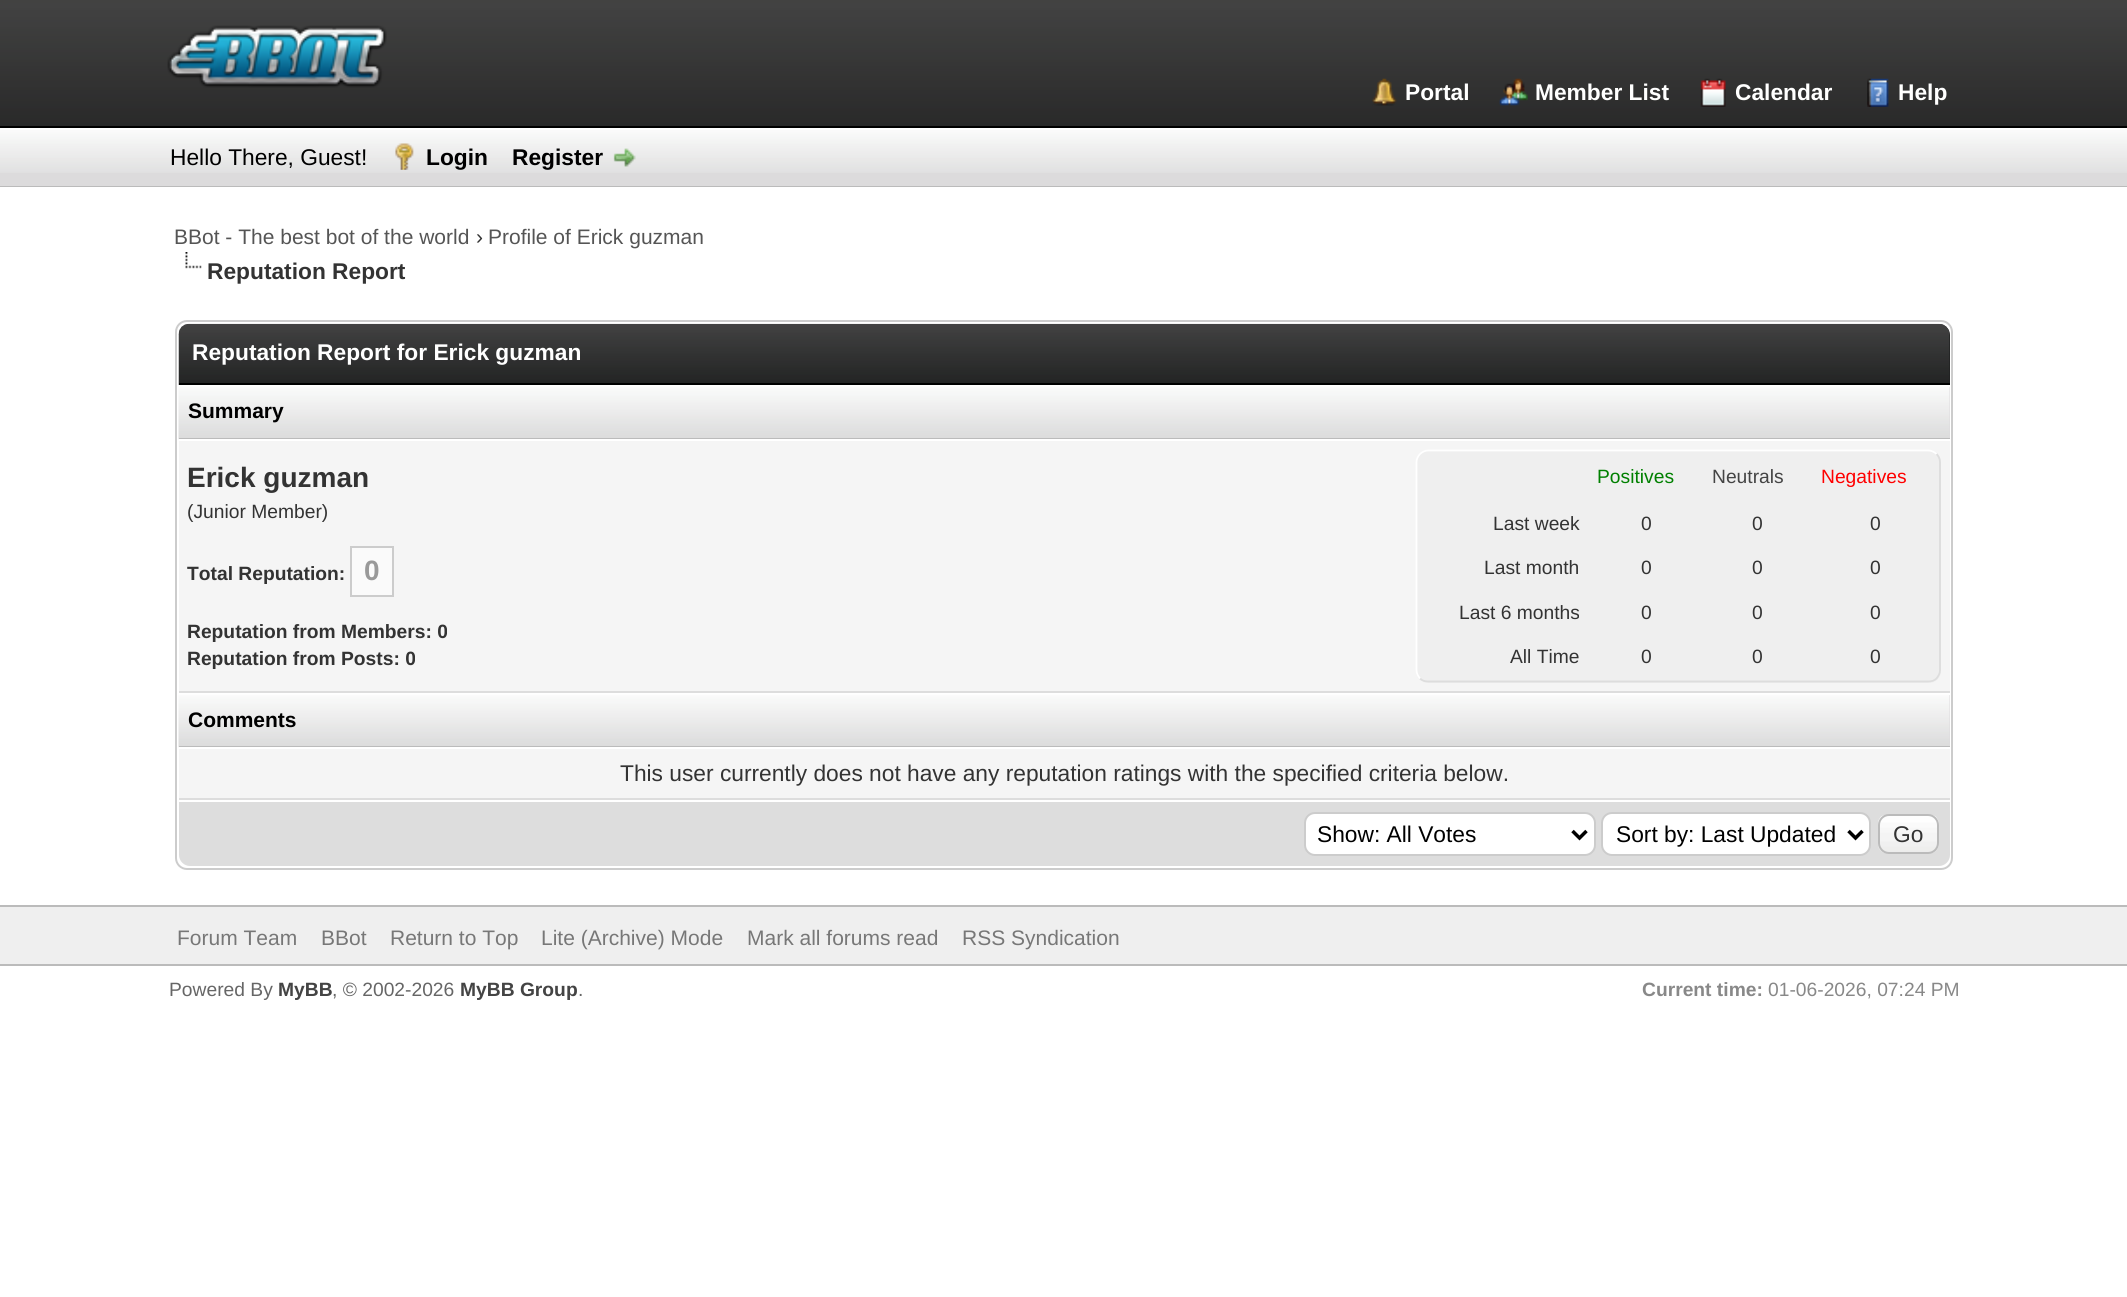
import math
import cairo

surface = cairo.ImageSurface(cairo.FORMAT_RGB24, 2127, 1297)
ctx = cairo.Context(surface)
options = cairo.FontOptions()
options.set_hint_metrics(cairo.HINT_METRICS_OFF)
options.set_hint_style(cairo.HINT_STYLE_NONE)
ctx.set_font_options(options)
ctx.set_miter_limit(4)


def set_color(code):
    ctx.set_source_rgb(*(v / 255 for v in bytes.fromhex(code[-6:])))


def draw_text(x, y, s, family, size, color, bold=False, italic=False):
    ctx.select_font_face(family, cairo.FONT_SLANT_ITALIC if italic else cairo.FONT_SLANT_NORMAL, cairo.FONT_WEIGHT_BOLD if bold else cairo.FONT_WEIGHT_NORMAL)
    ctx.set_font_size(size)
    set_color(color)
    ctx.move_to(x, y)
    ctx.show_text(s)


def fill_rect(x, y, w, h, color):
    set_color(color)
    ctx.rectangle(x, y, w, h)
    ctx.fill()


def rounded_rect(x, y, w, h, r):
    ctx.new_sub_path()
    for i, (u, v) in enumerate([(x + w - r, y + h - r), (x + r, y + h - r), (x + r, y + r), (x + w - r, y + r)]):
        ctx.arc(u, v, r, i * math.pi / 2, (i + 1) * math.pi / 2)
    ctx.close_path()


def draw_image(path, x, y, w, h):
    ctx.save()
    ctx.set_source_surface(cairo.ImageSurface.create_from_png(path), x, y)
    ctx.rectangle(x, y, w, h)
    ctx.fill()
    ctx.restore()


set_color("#ffffff")
ctx.paint()
draw_image("assets/img1.png", 0, 0, 2127, 126)
fill_rect(0, 126, 2127, 2, "#000000")
draw_image("assets/img2.png", 167, 25, 220, 63)
draw_image("assets/img3.png", 1372, 78, 25, 28)
draw_text(1405, 100, "Portal", "Liberation Sans", 22.75, "#ffffff", bold=True)
draw_image("assets/img4.png", 1499, 78, 29, 28)
draw_text(1535, 100, "Member List", "Liberation Sans", 22.75, "#ffffff", bold=True)
draw_image("assets/img5.png", 1700, 78, 26, 29)
draw_text(1735, 100, "Calendar", "Liberation Sans", 22.75, "#ffffff", bold=True)
draw_image("assets/img6.png", 1867, 78, 22, 29)
draw_text(1898, 100, "Help", "Liberation Sans", 22.75, "#ffffff", bold=True)
fill_rect(0, 173, 2127, 13, "#dcdbdc")
draw_image("assets/img7.png", 0, 130, 2127, 43)
fill_rect(0, 186, 2127, 1, "#bbbbbb")
draw_text(170, 165, "Hello There, Guest!", "Liberation Sans", 22.75, "#000000")
draw_image("assets/img8.png", 395, 143, 19, 27)
draw_text(426, 165, "Login", "Liberation Sans", 22.75, "#000000", bold=True)
draw_text(512, 165, "Register", "Liberation Sans", 22.75, "#000000", bold=True)
draw_image("assets/img9.png", 613, 148, 23, 19)
draw_text(174, 244, "BBot - The best bot of the world", "Liberation Sans", 21, "#555555")
draw_text(476, 244, "›", "Liberation Sans", 21, "#333333")
draw_text(488, 244, "Profile of Erick guzman", "Liberation Sans", 21, "#555555")
draw_image("assets/img10.png", 185, 252, 17, 17)
draw_text(207, 279, "Reputation Report", "Liberation Sans", 22.75, "#333333", bold=True)
rounded_rect(176, 321, 1776, 548, 11)
set_color("#cccccc")
ctx.stroke()
set_color("#202121")
ctx.new_path()
ctx.move_to(190, 324)
ctx.line_to(1939, 324)
ctx.curve_to(1945, 324, 1950, 329, 1950, 335)
ctx.line_to(1950, 385)
ctx.line_to(179, 385)
ctx.line_to(179, 335)
ctx.curve_to(179, 329, 184, 324, 190, 324)
ctx.close_path()
ctx.fill()
draw_image("assets/img11.png", 178, 323, 1772, 62)
fill_rect(179, 383, 1771, 2, "#000000")
draw_text(192, 360, "Reputation Report for Erick guzman", "Liberation Sans", 22.75, "#ffffff", bold=True)
fill_rect(1949, 387, 1, 51, "#dcdbdc")
draw_image("assets/img12.png", 178, 386, 1772, 54)
fill_rect(179, 438, 1771, 1, "#bbbbbb")
draw_text(188, 418, "Summary", "Liberation Sans", 21, "#000000", bold=True)
fill_rect(179, 441, 1771, 250, "#f5f5f5")
fill_rect(179, 439, 1771, 1, "#ffffff")
fill_rect(179, 691, 1771, 2, "#dddddd")
draw_text(187, 487, "Erick guzman", "Liberation Sans", 28, "#333333", bold=True)
draw_text(187, 518, "(Junior Member)", "Liberation Sans", 19.25, "#333333")
draw_text(187, 580, "Total Reputation:", "Liberation Sans", 19.25, "#333333", bold=True)
set_color("#fafafa")
ctx.rectangle(351, 547, 42, 49)
ctx.fill_preserve()
set_color("#cccccc")
ctx.stroke()
draw_text(364, 580, "0", "Liberation Sans", 28, "#999999", bold=True)
draw_text(187, 638, "Reputation from Members: 0", "Liberation Sans", 19.25, "#333333", bold=True)
draw_text(187, 665, "Reputation from Posts: 0", "Liberation Sans", 19.25, "#333333", bold=True)
set_color("#efefef")
rounded_rect(1416, 450, 525, 233, 12)
ctx.fill()
ctx.new_path()
ctx.move_to(1936.5, 454)
ctx.curve_to(1938.5, 456, 1940, 459, 1940, 462)
ctx.line_to(1940, 670)
ctx.curve_to(1940, 673.5, 1938.5, 676, 1936.5, 678.5)
ctx.curve_to(1934.5, 680.5, 1931.5, 681.5, 1928.5, 681.5)
ctx.line_to(1428, 681.5)
ctx.curve_to(1425, 681.5, 1422, 680.5, 1420, 678.5)
set_color("#dddddd")
ctx.set_line_width(1.8)
ctx.stroke()
ctx.new_path()
ctx.move_to(1420, 678.5)
ctx.curve_to(1418, 676, 1416.5, 673.5, 1416.5, 670)
ctx.line_to(1416.5, 462)
ctx.curve_to(1416.5, 459, 1418, 456, 1420, 454)
ctx.curve_to(1422, 452, 1425, 450.5, 1428, 450.5)
ctx.line_to(1928.5, 450.5)
ctx.curve_to(1931.5, 450.5, 1934.5, 452, 1936.5, 454)
set_color("#ffffff")
ctx.stroke()
draw_text(1597, 483, "Positives", "Liberation Sans", 19.25, "#008000")
draw_text(1712, 483, "Neutrals", "Liberation Sans", 19.25, "#444444")
draw_text(1821, 483, "Negatives", "Liberation Sans", 19.25, "#ff0000")
draw_text(1493, 530, "Last week", "Liberation Sans", 19.25, "#333333")
draw_text(1641, 530, "0", "Liberation Sans", 19.25, "#333333")
draw_text(1752, 530, "0", "Liberation Sans", 19.25, "#333333")
draw_text(1870, 530, "0", "Liberation Sans", 19.25, "#333333")
draw_text(1484, 574, "Last month", "Liberation Sans", 19.25, "#333333")
draw_text(1641, 574, "0", "Liberation Sans", 19.25, "#333333")
draw_text(1752, 574, "0", "Liberation Sans", 19.25, "#333333")
draw_text(1870, 574, "0", "Liberation Sans", 19.25, "#333333")
draw_text(1459, 619, "Last 6 months", "Liberation Sans", 19.25, "#333333")
draw_text(1641, 619, "0", "Liberation Sans", 19.25, "#333333")
draw_text(1752, 619, "0", "Liberation Sans", 19.25, "#333333")
draw_text(1870, 619, "0", "Liberation Sans", 19.25, "#333333")
draw_text(1510, 663, "All Time", "Liberation Sans", 19.25, "#333333")
draw_text(1641, 663, "0", "Liberation Sans", 19.25, "#333333")
draw_text(1752, 663, "0", "Liberation Sans", 19.25, "#333333")
draw_text(1870, 663, "0", "Liberation Sans", 19.25, "#333333")
fill_rect(1949, 695, 1, 51, "#dcdbdc")
draw_image("assets/img12.png", 178, 694, 1772, 54)
fill_rect(179, 746, 1771, 1, "#bbbbbb")
draw_text(188, 727, "Comments", "Liberation Sans", 21, "#000000", bold=True)
fill_rect(179, 749, 1771, 49, "#f5f5f5")
fill_rect(179, 747, 1771, 1, "#ffffff")
fill_rect(179, 798, 1771, 2, "#dddddd")
draw_text(620, 781, "This user currently does not have any reputation ratings with the specified criteria below.", "Liberation Sans", 22.75, "#333333")
set_color("#dddddd")
ctx.new_path()
ctx.move_to(179, 800)
ctx.line_to(1950, 800)
ctx.line_to(1950, 855)
ctx.curve_to(1950, 861, 1945, 866, 1939, 866)
ctx.line_to(190, 866)
ctx.curve_to(184, 866, 179, 861, 179, 855)
ctx.close_path()
ctx.fill()
fill_rect(179, 800, 1771, 2, "#ffffff")
rounded_rect(1305, 813, 290, 42, 10)
ctx.fill_preserve()
set_color("#cccccc")
ctx.set_line_width(2)
ctx.stroke()
ctx.new_path()
ctx.move_to(1572.5, 831)
ctx.line_to(1579.5, 838)
ctx.line_to(1586.5, 831)
set_color("#000000")
ctx.set_line_width(3.5)
ctx.stroke()
draw_text(1317, 842, "Show: All Votes", "Liberation Sans", 22.75, "#000000")
set_color("#ffffff")
rounded_rect(1602, 813, 268, 42, 10)
ctx.fill_preserve()
set_color("#cccccc")
ctx.set_line_width(2)
ctx.stroke()
ctx.new_path()
ctx.move_to(1848.5, 831)
ctx.line_to(1855.5, 838)
ctx.line_to(1862.5, 831)
set_color("#000000")
ctx.set_line_width(3.5)
ctx.stroke()
draw_text(1616, 842, "Sort by: Last Updated", "Liberation Sans", 22.75, "#000000")
draw_image("assets/img13.png", 1878, 815, 61, 38)
rounded_rect(1879, 815, 59, 38, 10)
set_color("#bbbbbb")
ctx.set_line_width(2)
ctx.stroke()
draw_text(1893, 842, "Go", "Liberation Sans", 22.75, "#333333")
fill_rect(0, 907, 2127, 57, "#efefef")
fill_rect(0, 905, 2127, 2, "#bbbbbb")
fill_rect(0, 964, 2127, 2, "#bbbbbb")
draw_text(177, 945, "Forum Team", "Liberation Sans", 21, "#777777")
draw_text(321, 945, "BBot", "Liberation Sans", 21, "#777777")
draw_text(390, 945, "Return to Top", "Liberation Sans", 21, "#777777")
draw_text(541, 945, "Lite (Archive) Mode", "Liberation Sans", 21, "#777777")
draw_text(747, 945, "Mark all forums read", "Liberation Sans", 21, "#777777")
draw_text(962, 945, "RSS Syndication", "Liberation Sans", 21, "#777777")
draw_text(169, 996, "Powered By", "Liberation Sans", 19.25, "#666666")
draw_text(278, 996, "MyBB", "Liberation Sans", 19.25, "#444444", bold=True)
draw_text(332, 996, ", © 2002-2026", "Liberation Sans", 19.25, "#666666")
draw_text(460, 996, "MyBB Group", "Liberation Sans", 19.25, "#444444", bold=True)
draw_text(578, 996, ".", "Liberation Sans", 19.25, "#666666")
draw_text(1642, 996, "Current time:", "Liberation Sans", 19.25, "#888888", bold=True)
draw_text(1768, 996, "01-06-2026, 07:24 PM", "Liberation Sans", 19.25, "#888888")
surface.write_to_png("output.png")
